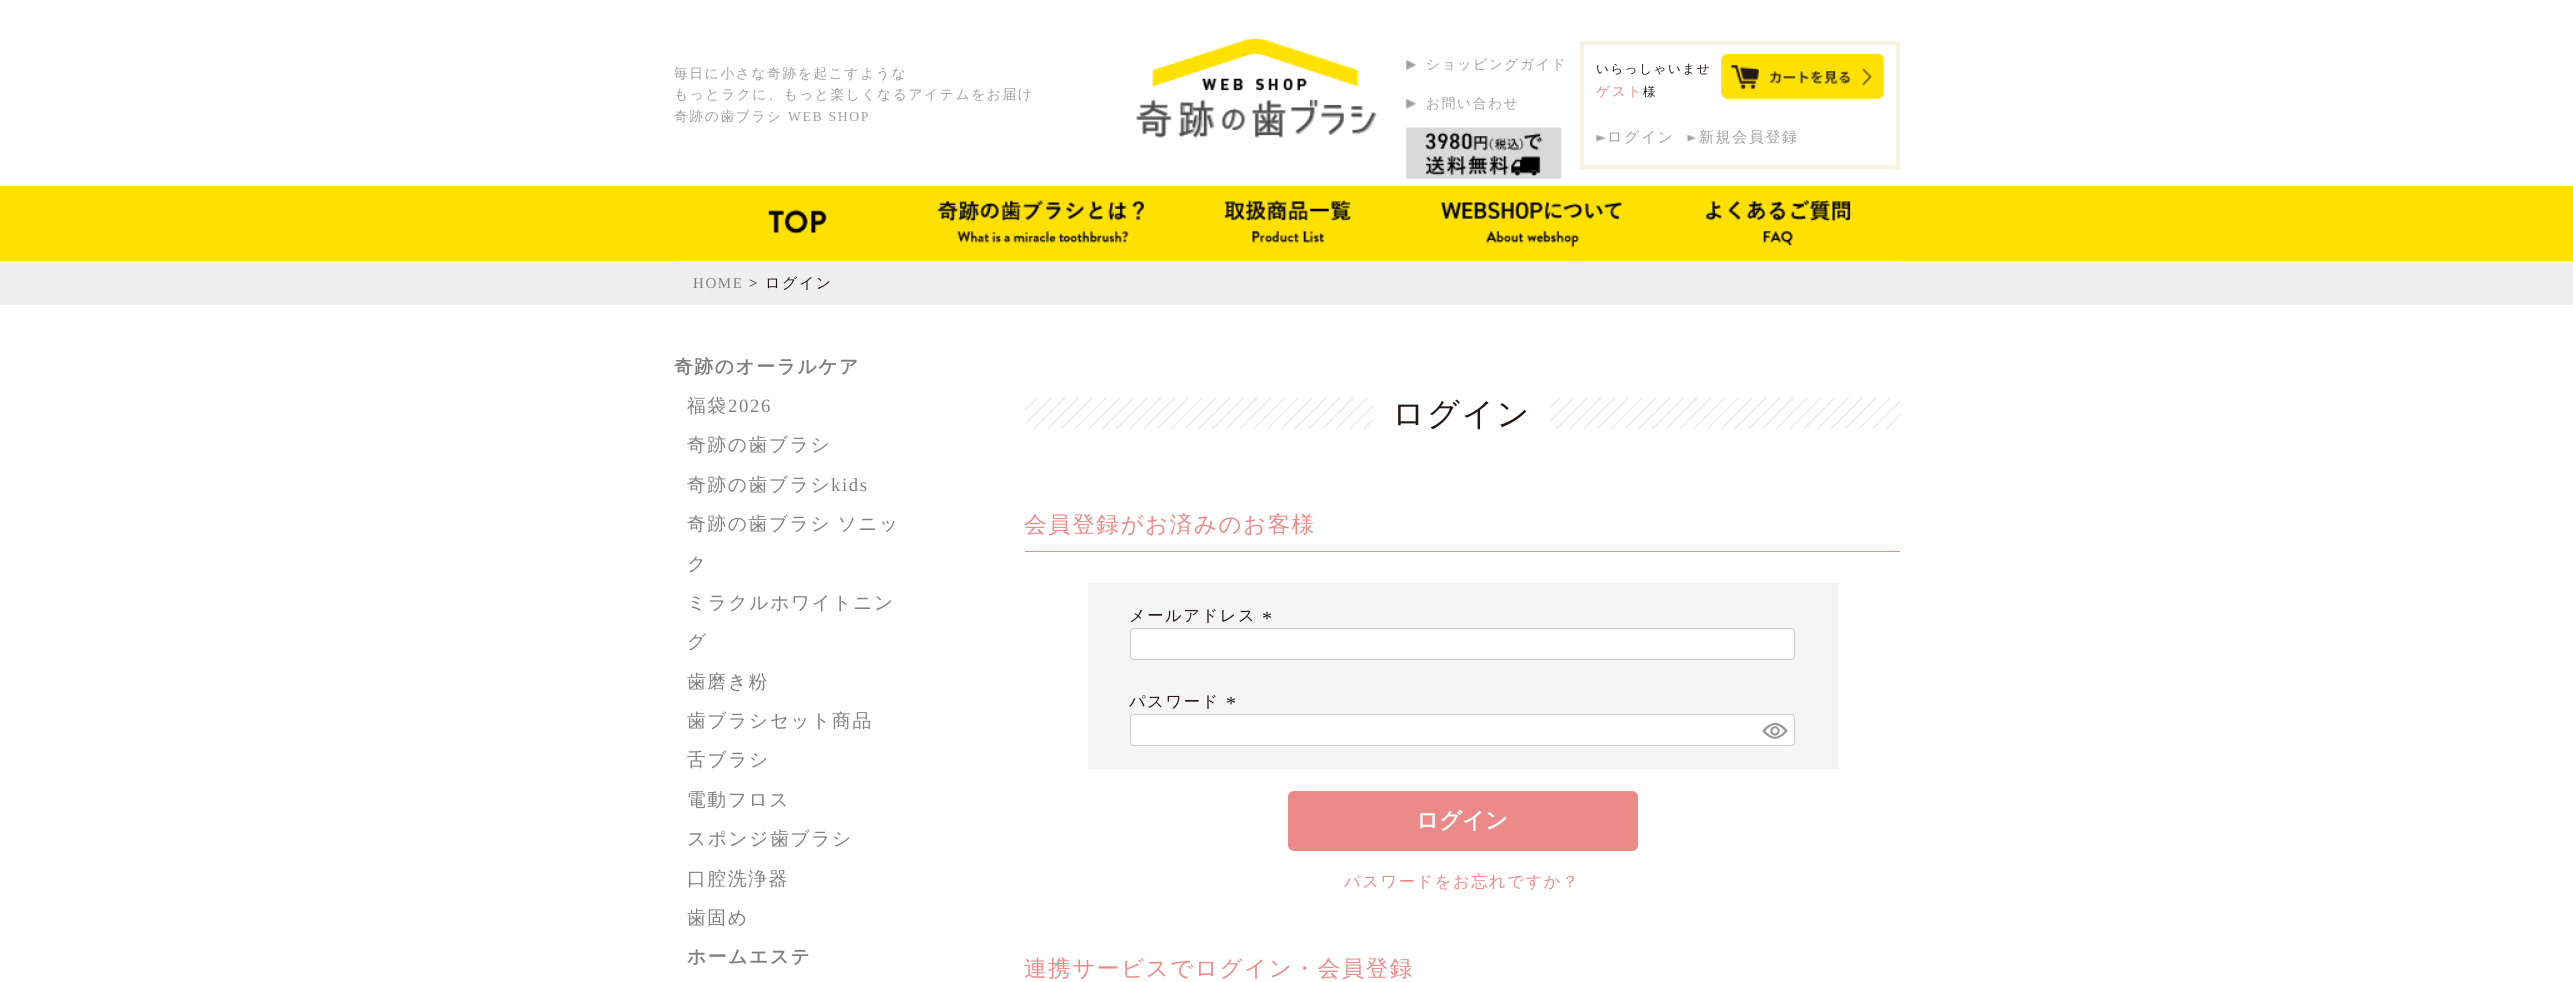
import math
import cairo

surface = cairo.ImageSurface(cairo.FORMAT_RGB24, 2573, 982)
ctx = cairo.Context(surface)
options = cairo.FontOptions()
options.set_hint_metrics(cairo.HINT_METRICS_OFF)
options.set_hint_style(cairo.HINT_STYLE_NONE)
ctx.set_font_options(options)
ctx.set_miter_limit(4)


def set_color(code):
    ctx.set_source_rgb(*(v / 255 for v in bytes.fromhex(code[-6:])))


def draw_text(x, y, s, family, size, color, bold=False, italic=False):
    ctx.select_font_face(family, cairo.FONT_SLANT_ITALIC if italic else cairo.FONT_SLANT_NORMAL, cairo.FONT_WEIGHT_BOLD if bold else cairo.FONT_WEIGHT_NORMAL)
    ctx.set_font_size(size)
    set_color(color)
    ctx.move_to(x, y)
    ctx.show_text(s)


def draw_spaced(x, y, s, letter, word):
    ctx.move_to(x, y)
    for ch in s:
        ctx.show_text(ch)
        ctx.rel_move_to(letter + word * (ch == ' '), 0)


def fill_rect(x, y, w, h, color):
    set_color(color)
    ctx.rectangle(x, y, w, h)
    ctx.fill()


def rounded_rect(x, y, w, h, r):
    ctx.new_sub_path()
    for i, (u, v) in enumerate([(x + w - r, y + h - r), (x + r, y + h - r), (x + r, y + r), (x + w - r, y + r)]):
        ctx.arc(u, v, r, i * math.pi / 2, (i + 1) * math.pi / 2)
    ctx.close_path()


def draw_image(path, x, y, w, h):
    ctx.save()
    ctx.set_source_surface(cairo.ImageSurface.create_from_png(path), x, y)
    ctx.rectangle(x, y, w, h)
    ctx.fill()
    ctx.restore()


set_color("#ffffff")
ctx.paint()
ctx.select_font_face("WenQuanYi Zen Hei Medium")
ctx.set_font_size(13.75)
set_color("#9fa0a0")
draw_spaced(674, 78, "毎日に小さな奇跡を起こすような", 1.6, 0)
draw_spaced(674, 99, "もっとラクに、もっと楽しくなるアイテムをお届け", 1.6, 0)
draw_spaced(674, 121, "奇跡の歯ブラシ", 1.6, 0)
ctx.select_font_face("Liberation Serif")
draw_spaced(788, 121, "WEB SHOP", 1.6, 0)
draw_image("assets/img1.png", 1136, 38, 241, 100)
draw_image("assets/img2.png", 1406, 60, 11, 10)
ctx.select_font_face("WenQuanYi Zen Hei Medium")
draw_spaced(1426, 69, "ショッピングガイド", 1.6, 0)
draw_image("assets/img3.png", 1406, 98, 11, 11)
draw_spaced(1426, 108, "お問い合わせ", 1.6, 0)
draw_image("assets/img4.png", 1406, 127, 156, 52)
ctx.rectangle(1582, 43, 316, 124)
set_color("#f6f3e1")
ctx.set_line_width(4)
ctx.stroke()
ctx.set_font_size(12.5)
set_color("#231815")
draw_spaced(1596, 73, "いらっしゃいませ", 1.6, 0)
ctx.set_font_size(13.75)
set_color("#ec8989")
draw_spaced(1596, 96, "ゲスト", 1.6, 0)
ctx.set_font_size(12.5)
set_color("#231815")
draw_spaced(1643, 96, "様", 1.6, 0)
draw_image("assets/img5.png", 1721, 53, 163, 46)
draw_image("assets/img6.png", 1596, 135, 11, 7)
ctx.set_font_size(15)
set_color("#9fa0a0")
draw_spaced(1607, 142, "ログイン", 1.6, 0)
draw_image("assets/img7.png", 1687, 135, 10, 7)
draw_spaced(1699, 142, "新規会員登録", 1.6, 0)
fill_rect(0, 186, 2573, 75, "#ffe100")
fill_rect(0, 261, 2573, 44, "#efefef")
draw_image("assets/img8.png", 675, 209, 245, 53)
draw_image("assets/img9.png", 920, 199, 245, 63)
draw_image("assets/img10.png", 1165, 199, 245, 63)
draw_image("assets/img11.png", 1410, 198, 245, 64)
draw_image("assets/img12.png", 1655, 199, 245, 63)
ctx.select_font_face("Liberation Serif")
set_color("#808080")
draw_spaced(693, 288, "HOME", 1.6, 0)
set_color("#231815")
draw_spaced(749, 288, ">", 1.6, 0)
ctx.select_font_face("WenQuanYi Zen Hei Medium")
draw_spaced(765, 288, "ログイン", 1.6, 0)
ctx.select_font_face("WenQuanYi Zen Hei", cairo.FONT_SLANT_NORMAL, cairo.FONT_WEIGHT_BOLD)
ctx.set_font_size(18.75)
set_color("#808080")
draw_spaced(674, 373, "奇跡のオーラルケア", 1.6, 0)
ctx.select_font_face("WenQuanYi Zen Hei Medium")
draw_spaced(687, 412, "福袋", 1.6, 0)
ctx.select_font_face("Liberation Serif")
draw_spaced(728, 412, "2026", 1.6, 0)
ctx.select_font_face("WenQuanYi Zen Hei Medium")
draw_spaced(687, 451, "奇跡の歯ブラシ", 1.6, 0)
draw_spaced(687, 491, "奇跡の歯ブラシ", 1.6, 0)
ctx.select_font_face("Liberation Serif")
draw_spaced(831, 491, "kids", 1.6, 0)
ctx.select_font_face("WenQuanYi Zen Hei Medium")
draw_spaced(687, 530, "奇跡の歯ブラシ ソニッ", 1.6, -1)
draw_spaced(687, 570, "ク", 1.6, 0)
draw_spaced(687, 609, "ミラクルホワイトニン", 1.6, 0)
draw_spaced(687, 648, "グ", 1.6, 0)
draw_spaced(687, 688, "歯磨き粉", 1.6, 0)
draw_spaced(687, 727, "歯ブラシセット商品", 1.6, 0)
draw_spaced(687, 766, "舌ブラシ", 1.6, 0)
draw_spaced(687, 806, "電動フロス", 1.6, 0)
draw_spaced(687, 845, "スポンジ歯ブラシ", 1.6, 0)
draw_spaced(687, 885, "口腔洗浄器", 1.6, 0)
draw_spaced(687, 924, "歯固め", 1.6, 0)
ctx.select_font_face("WenQuanYi Zen Hei", cairo.FONT_SLANT_NORMAL, cairo.FONT_WEIGHT_BOLD)
draw_spaced(687, 963, "ホームエステ", 1.6, 0)
draw_image("assets/img13.png", 1025, 397, 875, 32)
fill_rect(1373, 398, 177, 31, "#ffffff")
ctx.select_font_face("WenQuanYi Zen Hei Medium")
ctx.set_font_size(32.5)
set_color("#231815")
draw_spaced(1392, 425, "ログイン", 1.5, 0)
fill_rect(1025, 551, 875, 1, "#ec8989")
ctx.set_font_size(22.5)
draw_spaced(1024, 532, "会員登録がお済みのお客様", 1.6, 0)
fill_rect(1088, 583, 750, 186, "#f5f5f5")
ctx.set_font_size(16.25)
set_color("#231815")
draw_spaced(1129, 621, "メールアドレス", 1.6, 0)
ctx.select_font_face("Liberation Serif")
ctx.set_font_size(20)
draw_spaced(1262, 625, "*", 1.6, 0)
set_color("#ffffff")
rounded_rect(1130.5, 628.5, 664, 31, 3.5)
ctx.fill_preserve()
set_color("#cccccc")
ctx.set_line_width(1)
ctx.stroke()
ctx.select_font_face("WenQuanYi Zen Hei Medium")
ctx.set_font_size(16.25)
set_color("#231815")
draw_spaced(1129, 707, "パスワード", 1.6, 0)
ctx.select_font_face("Liberation Serif")
ctx.set_font_size(20)
draw_spaced(1226, 710, "*", 1.6, 0)
set_color("#ffffff")
rounded_rect(1130.5, 714.5, 664, 31, 3.5)
ctx.fill_preserve()
set_color("#cccccc")
ctx.stroke()
set_color("#ffffff")
rounded_rect(1131, 715, 625, 30, 4)
ctx.fill()
draw_image("assets/img14.png", 1762, 722, 26, 17)
set_color("#ec8989")
rounded_rect(1288, 791, 350, 60, 6)
ctx.fill()
draw_text(1416, 828, "ログイン", "WenQuanYi Zen Hei", 22.5, "#ffffff", bold=True)
ctx.select_font_face("WenQuanYi Zen Hei Medium")
ctx.set_font_size(16.25)
set_color("#ec8989")
draw_spaced(1344, 887, "パスワードをお忘れですか？", 1.6, 0)
ctx.set_font_size(22.5)
draw_spaced(1024, 976, "連携サービスでログイン・会員登録", 1.6, 0)
surface.write_to_png("output.png")
